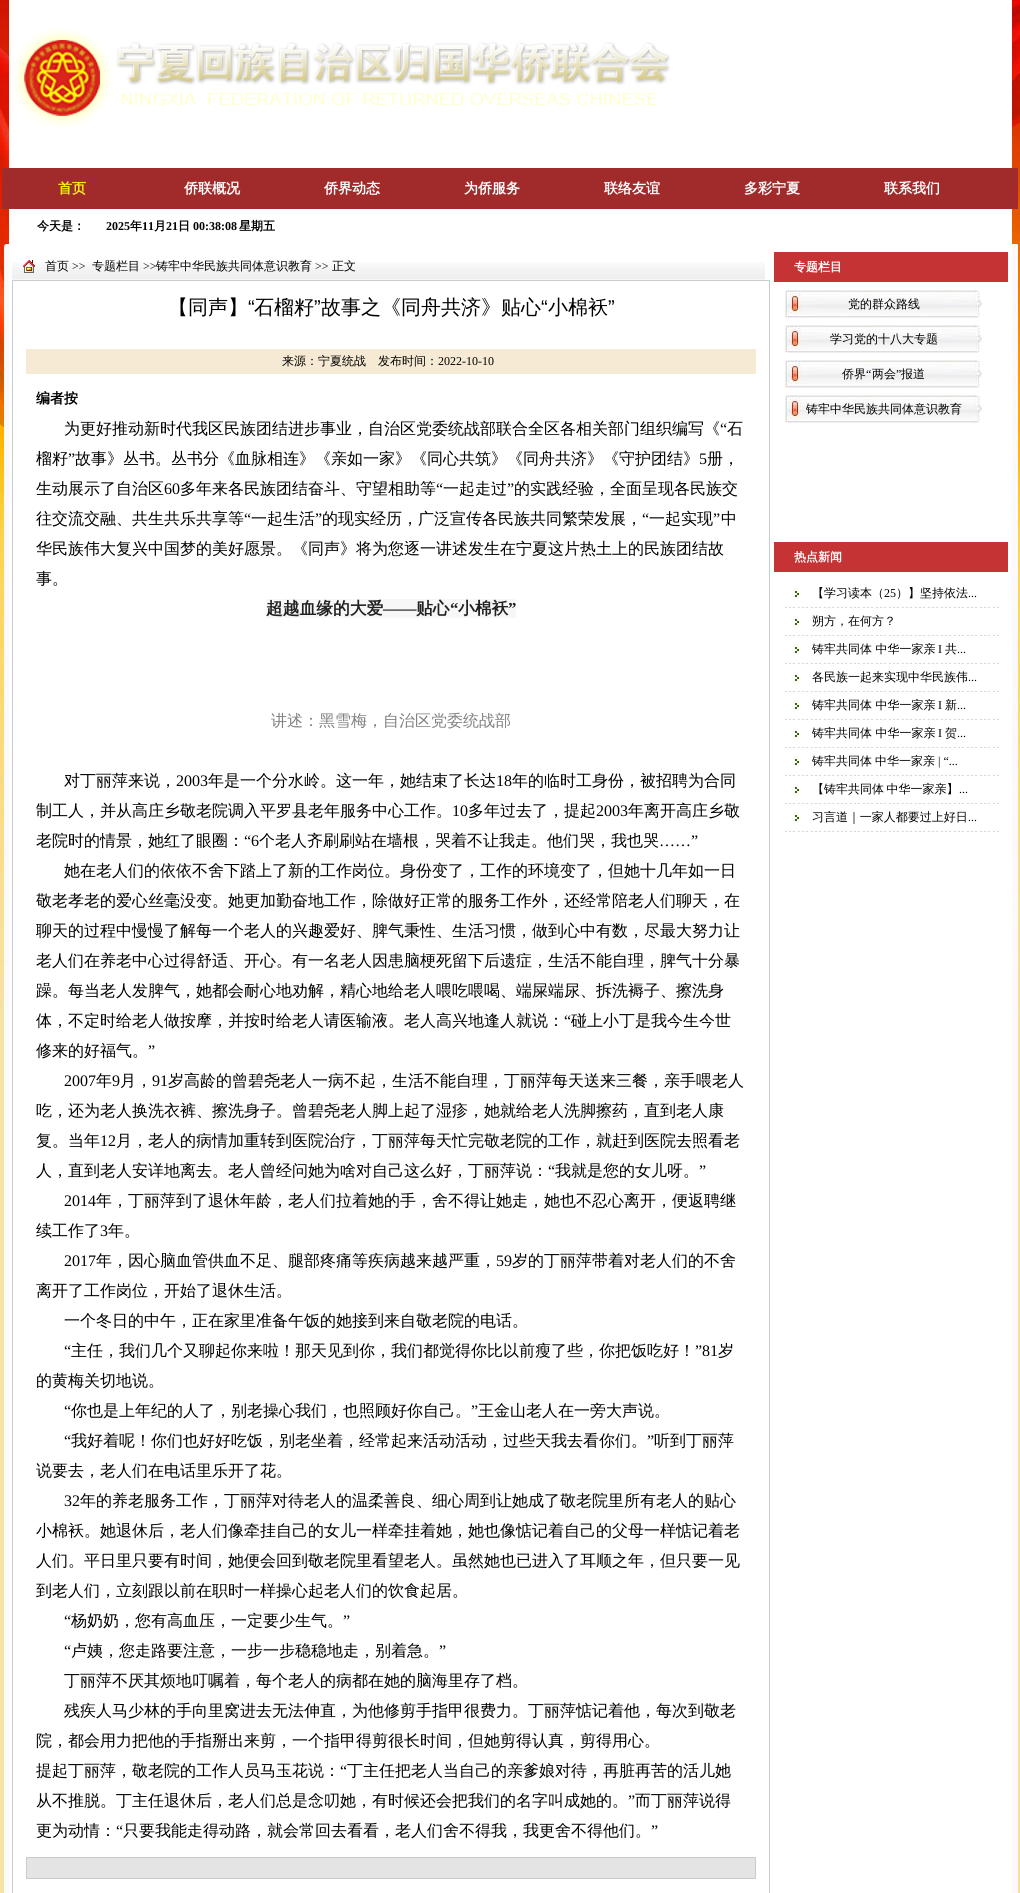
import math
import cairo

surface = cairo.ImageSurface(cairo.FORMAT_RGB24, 1020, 1893)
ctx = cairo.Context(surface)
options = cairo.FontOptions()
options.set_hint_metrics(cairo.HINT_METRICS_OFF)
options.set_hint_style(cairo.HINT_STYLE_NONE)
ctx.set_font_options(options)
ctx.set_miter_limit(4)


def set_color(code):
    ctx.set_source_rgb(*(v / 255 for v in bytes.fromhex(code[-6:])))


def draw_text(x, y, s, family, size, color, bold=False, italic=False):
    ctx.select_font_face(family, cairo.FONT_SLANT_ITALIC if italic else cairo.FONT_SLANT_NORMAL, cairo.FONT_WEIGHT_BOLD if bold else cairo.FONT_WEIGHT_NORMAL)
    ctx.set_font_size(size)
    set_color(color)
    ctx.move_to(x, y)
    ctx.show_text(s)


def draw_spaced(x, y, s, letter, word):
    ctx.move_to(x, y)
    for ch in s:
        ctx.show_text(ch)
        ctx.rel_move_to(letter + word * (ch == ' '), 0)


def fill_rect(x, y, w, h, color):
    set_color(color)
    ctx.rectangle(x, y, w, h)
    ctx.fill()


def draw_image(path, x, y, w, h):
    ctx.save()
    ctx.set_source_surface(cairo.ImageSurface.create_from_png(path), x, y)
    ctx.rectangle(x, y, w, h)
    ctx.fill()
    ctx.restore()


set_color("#ffffff")
ctx.paint()
draw_image("assets/img1.png", 0, 0, 1020, 1893)
fill_rect(9, 0, 1003, 168, "#ffffff")
draw_image("assets/img2.png", 13, 28, 657, 100)
fill_rect(2, 168, 1016, 41, "#a12b2b")
draw_text(58, 193, "首页", "WenQuanYi Zen Hei", 14, "#f7f410", bold=True)
draw_text(184, 193, "侨联概况", "WenQuanYi Zen Hei", 14, "#ffffff", bold=True)
draw_text(324, 193, "侨界动态", "WenQuanYi Zen Hei", 14, "#ffffff", bold=True)
draw_text(464, 193, "为侨服务", "WenQuanYi Zen Hei", 14, "#ffffff", bold=True)
draw_text(604, 193, "联络友谊", "WenQuanYi Zen Hei", 14, "#ffffff", bold=True)
draw_text(744, 193, "多彩宁夏", "WenQuanYi Zen Hei", 14, "#ffffff", bold=True)
draw_text(884, 193, "联系我们", "WenQuanYi Zen Hei", 14, "#ffffff", bold=True)
fill_rect(9, 209, 1003, 1684, "#ffffff")
draw_text(37, 230, "今天是：", "WenQuanYi Zen Hei", 12, "#000000", bold=True)
draw_text(106, 230, "2025", "Liberation Serif", 12, "#000000", bold=True)
draw_text(130, 230, "年", "WenQuanYi Zen Hei", 12, "#000000", bold=True)
draw_text(142, 230, "11", "Liberation Serif", 12, "#000000", bold=True)
draw_text(154, 230, "月", "WenQuanYi Zen Hei", 12, "#000000", bold=True)
draw_text(166, 230, "21", "Liberation Serif", 12, "#000000", bold=True)
draw_text(178, 230, "日", "WenQuanYi Zen Hei", 12, "#000000", bold=True)
draw_text(193, 230, "00:38:08", "Liberation Serif", 12, "#000000", bold=True)
draw_text(239, 230, "星期五", "WenQuanYi Zen Hei", 12, "#000000", bold=True)
draw_image("assets/img3.png", 12, 262, 33, 18)
draw_image("assets/img4.png", 23, 260, 12, 13)
draw_image("assets/img5.png", 45, 262, 707, 18)
draw_text(45, 270, "首页", "WenQuanYi Zen Hei Medium", 12, "#000000")
draw_text(72, 270, ">>", "Liberation Serif", 12, "#000000")
draw_text(92, 270, "专题栏目", "WenQuanYi Zen Hei Medium", 12, "#000000")
draw_text(143, 270, ">>", "Liberation Serif", 12, "#000000")
draw_text(156, 270, "铸牢中华民族共同体意识教育", "WenQuanYi Zen Hei Medium", 12, "#000000")
draw_text(315, 270, ">>", "Liberation Serif", 12, "#000000")
draw_text(332, 270, "正文", "WenQuanYi Zen Hei Medium", 12, "#000000")
draw_image("assets/img6.png", 752, 262, 13, 18)
ctx.rectangle(12.5, 280.5, 757, 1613)
set_color("#cccccc")
ctx.set_line_width(1)
ctx.stroke()
draw_text(168, 314, "【同声】", "WenQuanYi Zen Hei Medium", 20, "#000000")
draw_text(248, 314, "“", "Liberation Sans", 20, "#000000")
draw_text(254, 314, "石榴籽", "WenQuanYi Zen Hei Medium", 20, "#000000")
draw_text(314, 314, "”", "Liberation Sans", 20, "#000000")
draw_text(321, 314, "故事之《同舟共济》贴心", "WenQuanYi Zen Hei Medium", 20, "#000000")
draw_text(541, 314, "“", "Liberation Sans", 20, "#000000")
draw_text(548, 314, "小棉袄", "WenQuanYi Zen Hei Medium", 20, "#000000")
draw_text(608, 314, "”", "Liberation Sans", 20, "#000000")
fill_rect(26, 349, 730, 25, "#f6ead4")
draw_text(282, 365, "来源：宁夏统战", "WenQuanYi Zen Hei Medium", 12, "#000000")
draw_text(378, 365, "发布时间：", "WenQuanYi Zen Hei Medium", 12, "#000000")
draw_text(438, 365, "2022-10-10", "Liberation Serif", 12, "#000000")
draw_text(36, 403, "编者按", "WenQuanYi Zen Hei", 14, "#000000", bold=True)
draw_text(64, 434, "为更好推动新时代我区民族团结进步事业，自治区党委统战部联合全区各相关部门组织编写《", "WenQuanYi Zen Hei Medium", 16, "#000000")
draw_text(720, 434, "“", "Liberation Serif", 16, "#000000")
draw_text(727, 434, "石", "WenQuanYi Zen Hei Medium", 16, "#000000")
draw_text(36, 464, "榴籽", "WenQuanYi Zen Hei Medium", 16, "#000000")
draw_text(68, 464, "”", "Liberation Serif", 16, "#000000")
draw_text(75, 464, "故事》丛书。丛书分《血脉相连》《亲如一家》《同心共筑》《同舟共济》《守护团结》", "WenQuanYi Zen Hei Medium", 16, "#000000")
draw_text(699, 464, "5", "Liberation Serif", 16, "#000000")
draw_text(707, 464, "册，", "WenQuanYi Zen Hei Medium", 16, "#000000")
draw_text(36, 494, "生动展示了自治区", "WenQuanYi Zen Hei Medium", 16, "#000000")
draw_text(164, 494, "60", "Liberation Serif", 16, "#000000")
draw_text(180, 494, "多年来各民族团结奋斗、守望相助等", "WenQuanYi Zen Hei Medium", 16, "#000000")
draw_text(436, 494, "“", "Liberation Serif", 16, "#000000")
draw_text(443, 494, "一起走过", "WenQuanYi Zen Hei Medium", 16, "#000000")
draw_text(507, 494, "”", "Liberation Serif", 16, "#000000")
draw_text(514, 494, "的实践经验，全面呈现各民族交", "WenQuanYi Zen Hei Medium", 16, "#000000")
draw_text(36, 524, "往交流交融、共生共乐共享等", "WenQuanYi Zen Hei Medium", 16, "#000000")
draw_text(244, 524, "“", "Liberation Serif", 16, "#000000")
draw_text(251, 524, "一起生活", "WenQuanYi Zen Hei Medium", 16, "#000000")
draw_text(315, 524, "”", "Liberation Serif", 16, "#000000")
draw_text(322, 524, "的现实经历，广泛宣传各民族共同繁荣发展，", "WenQuanYi Zen Hei Medium", 16, "#000000")
draw_text(642, 524, "“", "Liberation Serif", 16, "#000000")
draw_text(649, 524, "一起实现", "WenQuanYi Zen Hei Medium", 16, "#000000")
draw_text(713, 524, "”", "Liberation Serif", 16, "#000000")
draw_text(721, 524, "中", "WenQuanYi Zen Hei Medium", 16, "#000000")
draw_text(36, 554, "华民族伟大复兴中国梦的美好愿景。《同声》将为您逐一讲述发生在宁夏这片热土上的民族团结故", "WenQuanYi Zen Hei Medium", 16, "#000000")
draw_text(36, 584, "事。", "WenQuanYi Zen Hei Medium", 16, "#000000")
fill_rect(266, 599, 250, 19, "#f7f7f7")
draw_text(266, 614, "超越血缘的大爱", "WenQuanYi Zen Hei", 16.75, "#222222", bold=True)
draw_text(383, 614, "——", "Liberation Serif", 16.75, "#222222", bold=True)
draw_text(416, 614, "贴心", "WenQuanYi Zen Hei", 16.75, "#222222", bold=True)
draw_text(450, 614, "“", "Liberation Serif", 16.75, "#222222", bold=True)
draw_text(458, 614, "小棉袄", "WenQuanYi Zen Hei", 16.75, "#222222", bold=True)
draw_text(508, 614, "”", "Liberation Serif", 16.75, "#222222", bold=True)
draw_text(271, 726, "讲述：黑雪梅，自治区党委统战部", "WenQuanYi Zen Hei Medium", 16, "#808080")
draw_text(64, 786, "对丁丽萍来说，", "WenQuanYi Zen Hei Medium", 16, "#000000")
draw_text(176, 786, "2003", "Liberation Serif", 16, "#000000")
draw_text(208, 786, "年是一个分水岭。这一年，她结束了长达", "WenQuanYi Zen Hei Medium", 16, "#000000")
draw_text(496, 786, "18", "Liberation Serif", 16, "#000000")
draw_text(512, 786, "年的临时工身份，被招聘为合同", "WenQuanYi Zen Hei Medium", 16, "#000000")
draw_text(36, 816, "制工人，并从高庄乡敬老院调入平罗县老年服务中心工作。", "WenQuanYi Zen Hei Medium", 16, "#000000")
draw_text(452, 816, "10", "Liberation Serif", 16, "#000000")
draw_text(468, 816, "多年过去了，提起", "WenQuanYi Zen Hei Medium", 16, "#000000")
draw_text(596, 816, "2003", "Liberation Serif", 16, "#000000")
draw_text(628, 816, "年离开高庄乡敬", "WenQuanYi Zen Hei Medium", 16, "#000000")
draw_text(36, 846, "老院时的情景，她红了眼圈：", "WenQuanYi Zen Hei Medium", 16, "#000000")
draw_text(244, 846, "“6", "Liberation Serif", 16, "#000000")
draw_text(259, 846, "个老人齐刷刷站在墙根，哭着不让我走。他们哭，我也哭", "WenQuanYi Zen Hei Medium", 16, "#000000")
draw_text(659, 846, "……”", "Liberation Serif", 16, "#000000")
draw_text(64, 876, "她在老人们的依依不舍下踏上了新的工作岗位。身份变了，工作的环境变了，但她十几年如一日", "WenQuanYi Zen Hei Medium", 16, "#000000")
draw_text(36, 906, "敬老孝老的爱心丝毫没变。她更加勤奋地工作，除做好正常的服务工作外，还经常陪老人们聊天，在", "WenQuanYi Zen Hei Medium", 16, "#000000")
draw_text(36, 936, "聊天的过程中慢慢了解每一个老人的兴趣爱好、脾气秉性、生活习惯，做到心中有数，尽最大努力让", "WenQuanYi Zen Hei Medium", 16, "#000000")
draw_text(36, 966, "老人们在养老中心过得舒适、开心。有一名老人因患脑梗死留下后遗症，生活不能自理，脾气十分暴", "WenQuanYi Zen Hei Medium", 16, "#000000")
draw_text(36, 996, "躁。每当老人发脾气，她都会耐心地劝解，精心地给老人喂吃喂喝、端屎端尿、拆洗褥子、擦洗身", "WenQuanYi Zen Hei Medium", 16, "#000000")
draw_text(36, 1026, "体，不定时给老人做按摩，并按时给老人请医输液。老人高兴地逢人就说：", "WenQuanYi Zen Hei Medium", 16, "#000000")
draw_text(564, 1026, "“", "Liberation Serif", 16, "#000000")
draw_text(571, 1026, "碰上小丁是我今生今世", "WenQuanYi Zen Hei Medium", 16, "#000000")
draw_text(36, 1056, "修来的好福气。", "WenQuanYi Zen Hei Medium", 16, "#000000")
draw_text(148, 1056, "”", "Liberation Serif", 16, "#000000")
draw_text(64, 1086, "2007", "Liberation Serif", 16, "#000000")
draw_text(96, 1086, "年", "WenQuanYi Zen Hei Medium", 16, "#000000")
draw_text(112, 1086, "9", "Liberation Serif", 16, "#000000")
draw_text(120, 1086, "月，", "WenQuanYi Zen Hei Medium", 16, "#000000")
draw_text(152, 1086, "91", "Liberation Serif", 16, "#000000")
draw_text(168, 1086, "岁高龄的曾碧尧老人一病不起，生活不能自理，丁丽萍每天送来三餐，亲手喂老人", "WenQuanYi Zen Hei Medium", 16, "#000000")
draw_text(36, 1116, "吃，还为老人换洗衣裤、擦洗身子。曾碧尧老人脚上起了湿疹，她就给老人洗脚擦药，直到老人康", "WenQuanYi Zen Hei Medium", 16, "#000000")
draw_text(36, 1146, "复。当年", "WenQuanYi Zen Hei Medium", 16, "#000000")
draw_text(100, 1146, "12", "Liberation Serif", 16, "#000000")
draw_text(116, 1146, "月，老人的病情加重转到医院治疗，丁丽萍每天忙完敬老院的工作，就赶到医院去照看老", "WenQuanYi Zen Hei Medium", 16, "#000000")
draw_text(36, 1176, "人，直到老人安详地离去。老人曾经问她为啥对自己这么好，丁丽萍说：", "WenQuanYi Zen Hei Medium", 16, "#000000")
draw_text(548, 1176, "“", "Liberation Serif", 16, "#000000")
draw_text(555, 1176, "我就是您的女儿呀。", "WenQuanYi Zen Hei Medium", 16, "#000000")
draw_text(699, 1176, "”", "Liberation Serif", 16, "#000000")
draw_text(64, 1206, "2014", "Liberation Serif", 16, "#000000")
draw_text(96, 1206, "年，丁丽萍到了退休年龄，老人们拉着她的手，舍不得让她走，她也不忍心离开，便返聘继", "WenQuanYi Zen Hei Medium", 16, "#000000")
draw_text(36, 1236, "续工作了", "WenQuanYi Zen Hei Medium", 16, "#000000")
draw_text(100, 1236, "3", "Liberation Serif", 16, "#000000")
draw_text(108, 1236, "年。", "WenQuanYi Zen Hei Medium", 16, "#000000")
draw_text(64, 1266, "2017", "Liberation Serif", 16, "#000000")
draw_text(96, 1266, "年，因心脑血管供血不足、腿部疼痛等疾病越来越严重，", "WenQuanYi Zen Hei Medium", 16, "#000000")
draw_text(496, 1266, "59", "Liberation Serif", 16, "#000000")
draw_text(512, 1266, "岁的丁丽萍带着对老人们的不舍", "WenQuanYi Zen Hei Medium", 16, "#000000")
draw_text(36, 1296, "离开了工作岗位，开始了退休生活。", "WenQuanYi Zen Hei Medium", 16, "#000000")
draw_text(64, 1326, "一个冬日的中午，正在家里准备午饭的她接到来自敬老院的电话。", "WenQuanYi Zen Hei Medium", 16, "#000000")
draw_text(64, 1356, "“", "Liberation Serif", 16, "#000000")
draw_text(71, 1356, "主任，我们几个又聊起你来啦！那天见到你，我们都觉得你比以前瘦了些，你把饭吃好！", "WenQuanYi Zen Hei Medium", 16, "#000000")
draw_text(695, 1356, "”81", "Liberation Serif", 16, "#000000")
draw_text(718, 1356, "岁", "WenQuanYi Zen Hei Medium", 16, "#000000")
draw_text(36, 1386, "的黄梅关切地说。", "WenQuanYi Zen Hei Medium", 16, "#000000")
draw_text(64, 1416, "“", "Liberation Serif", 16, "#000000")
draw_text(71, 1416, "你也是上年纪的人了，别老操心我们，也照顾好你自己。", "WenQuanYi Zen Hei Medium", 16, "#000000")
draw_text(471, 1416, "”", "Liberation Serif", 16, "#000000")
draw_text(478, 1416, "王金山老人在一旁大声说。", "WenQuanYi Zen Hei Medium", 16, "#000000")
draw_text(64, 1446, "“", "Liberation Serif", 16, "#000000")
draw_text(71, 1446, "我好着呢！你们也好好吃饭，别老坐着，经常起来活动活动，过些天我去看你们。", "WenQuanYi Zen Hei Medium", 16, "#000000")
draw_text(647, 1446, "”", "Liberation Serif", 16, "#000000")
draw_text(654, 1446, "听到丁丽萍", "WenQuanYi Zen Hei Medium", 16, "#000000")
draw_text(36, 1476, "说要去，老人们在电话里乐开了花。", "WenQuanYi Zen Hei Medium", 16, "#000000")
draw_text(64, 1506, "32", "Liberation Serif", 16, "#000000")
draw_text(80, 1506, "年的养老服务工作，丁丽萍对待老人的温柔善良、细心周到让她成了敬老院里所有老人的贴心", "WenQuanYi Zen Hei Medium", 16, "#000000")
draw_text(36, 1536, "小棉袄。她退休后，老人们像牵挂自己的女儿一样牵挂着她，她也像惦记着自己的父母一样惦记着老", "WenQuanYi Zen Hei Medium", 16, "#000000")
draw_text(36, 1566, "人们。平日里只要有时间，她便会回到敬老院里看望老人。虽然她也已进入了耳顺之年，但只要一见", "WenQuanYi Zen Hei Medium", 16, "#000000")
draw_text(36, 1596, "到老人们，立刻跟以前在职时一样操心起老人们的饮食起居。", "WenQuanYi Zen Hei Medium", 16, "#000000")
draw_text(64, 1626, "“", "Liberation Serif", 16, "#000000")
draw_text(71, 1626, "杨奶奶，您有高血压，一定要少生气。", "WenQuanYi Zen Hei Medium", 16, "#000000")
draw_text(343, 1626, "”", "Liberation Serif", 16, "#000000")
draw_text(64, 1656, "“", "Liberation Serif", 16, "#000000")
draw_text(71, 1656, "卢姨，您走路要注意，一步一步稳稳地走，别着急。", "WenQuanYi Zen Hei Medium", 16, "#000000")
draw_text(439, 1656, "”", "Liberation Serif", 16, "#000000")
draw_text(64, 1686, "丁丽萍不厌其烦地叮嘱着，每个老人的病都在她的脑海里存了档。", "WenQuanYi Zen Hei Medium", 16, "#000000")
draw_text(64, 1716, "残疾人马少林的手向里窝进去无法伸直，为他修剪手指甲很费力。丁丽萍惦记着他，每次到敬老", "WenQuanYi Zen Hei Medium", 16, "#000000")
draw_text(36, 1746, "院，都会用力把他的手指掰出来剪，一个指甲得剪很长时间，但她剪得认真，剪得用心。", "WenQuanYi Zen Hei Medium", 16, "#000000")
draw_text(36, 1776, "提起丁丽萍，敬老院的工作人员马玉花说：", "WenQuanYi Zen Hei Medium", 16, "#000000")
draw_text(340, 1776, "“", "Liberation Serif", 16, "#000000")
draw_text(347, 1776, "丁主任把老人当自己的亲爹娘对待，再脏再苦的活儿她", "WenQuanYi Zen Hei Medium", 16, "#000000")
draw_text(36, 1806, "从不推脱。丁主任退休后，老人们总是念叨她，有时候还会把我们的名字叫成她的。", "WenQuanYi Zen Hei Medium", 16, "#000000")
draw_text(628, 1806, "”", "Liberation Serif", 16, "#000000")
draw_text(635, 1806, "而丁丽萍说得", "WenQuanYi Zen Hei Medium", 16, "#000000")
draw_text(36, 1836, "更为动情：", "WenQuanYi Zen Hei Medium", 16, "#000000")
draw_text(116, 1836, "“", "Liberation Serif", 16, "#000000")
draw_text(123, 1836, "只要我能走得动路，就会常回去看看，老人们舍不得我，我更舍不得他们。", "WenQuanYi Zen Hei Medium", 16, "#000000")
draw_text(651, 1836, "”", "Liberation Serif", 16, "#000000")
set_color("#e4e4e4")
ctx.rectangle(26.5, 1857.5, 729, 21)
ctx.fill_preserve()
set_color("#cbcbcb")
ctx.stroke()
fill_rect(774, 252, 234, 30, "#c53334")
draw_text(794, 271, "专题栏目", "WenQuanYi Zen Hei", 12, "#ffffff", bold=True)
draw_image("assets/img7.png", 785, 290, 197, 28)
draw_text(848, 308, "党的群众路线", "WenQuanYi Zen Hei Medium", 12, "#000000")
draw_image("assets/img7.png", 785, 325, 197, 28)
draw_text(830, 343, "学习党的十八大专题", "WenQuanYi Zen Hei Medium", 12, "#000000")
draw_image("assets/img7.png", 785, 360, 197, 28)
draw_text(842, 378, "侨界", "WenQuanYi Zen Hei Medium", 12, "#000000")
draw_text(866, 378, "“", "Liberation Serif", 12, "#000000")
draw_text(872, 378, "两会", "WenQuanYi Zen Hei Medium", 12, "#000000")
draw_text(896, 378, "”", "Liberation Serif", 12, "#000000")
draw_text(901, 378, "报道", "WenQuanYi Zen Hei Medium", 12, "#000000")
draw_image("assets/img7.png", 785, 395, 197, 28)
draw_text(806, 413, "铸牢中华民族共同体意识教育", "WenQuanYi Zen Hei Medium", 12, "#000000")
fill_rect(774, 542, 234, 30, "#c53334")
draw_text(794, 561, "热点新闻", "WenQuanYi Zen Hei", 12, "#ffffff", bold=True)
draw_image("assets/img8.png", 791, 588, 8, 12)
draw_text(812, 597, "【学习读本（", "WenQuanYi Zen Hei Medium", 12, "#000000")
draw_text(884, 597, "25", "Liberation Serif", 12, "#000000")
draw_text(896, 597, "）】坚持依法", "WenQuanYi Zen Hei Medium", 12, "#000000")
draw_text(968, 597, "...", "Liberation Serif", 12, "#000000")
draw_image("assets/img9.png", 784, 607, 215, 1)
draw_image("assets/img8.png", 791, 616, 8, 12)
draw_text(812, 625, "朔方，在何方？", "WenQuanYi Zen Hei Medium", 12, "#000000")
draw_image("assets/img9.png", 784, 635, 215, 1)
draw_image("assets/img8.png", 791, 644, 8, 12)
draw_text(812, 653, "铸牢共同体 中华一家亲", "WenQuanYi Zen Hei Medium", 12, "#000000")
draw_text(938, 653, "I", "Liberation Serif", 12, "#000000")
draw_text(945, 653, "共", "WenQuanYi Zen Hei Medium", 12, "#000000")
draw_text(957, 653, "...", "Liberation Serif", 12, "#000000")
draw_image("assets/img9.png", 784, 663, 215, 1)
draw_image("assets/img8.png", 791, 672, 8, 12)
draw_text(812, 681, "各民族一起来实现中华民族伟", "WenQuanYi Zen Hei Medium", 12, "#000000")
draw_text(968, 681, "...", "Liberation Serif", 12, "#000000")
draw_image("assets/img9.png", 784, 691, 215, 1)
draw_image("assets/img8.png", 791, 700, 8, 12)
draw_text(812, 709, "铸牢共同体 中华一家亲", "WenQuanYi Zen Hei Medium", 12, "#000000")
draw_text(938, 709, "I", "Liberation Serif", 12, "#000000")
draw_text(945, 709, "新", "WenQuanYi Zen Hei Medium", 12, "#000000")
draw_text(957, 709, "...", "Liberation Serif", 12, "#000000")
draw_image("assets/img9.png", 784, 719, 215, 1)
draw_image("assets/img8.png", 791, 728, 8, 12)
draw_text(812, 737, "铸牢共同体 中华一家亲", "WenQuanYi Zen Hei Medium", 12, "#000000")
draw_text(938, 737, "I", "Liberation Serif", 12, "#000000")
draw_text(945, 737, "贺", "WenQuanYi Zen Hei Medium", 12, "#000000")
draw_text(957, 737, "...", "Liberation Serif", 12, "#000000")
draw_image("assets/img9.png", 784, 747, 215, 1)
draw_image("assets/img8.png", 791, 756, 8, 12)
draw_text(812, 765, "铸牢共同体", "WenQuanYi Zen Hei Medium", 12, "#000000")
draw_text(875, 765, "中华一家亲", "WenQuanYi Zen Hei Medium", 12, "#000000")
draw_text(938, 765, "| “...", "Liberation Serif", 12, "#000000")
draw_image("assets/img9.png", 784, 775, 215, 1)
draw_image("assets/img8.png", 791, 784, 8, 12)
ctx.select_font_face("WenQuanYi Zen Hei Medium")
draw_spaced(812, 793, "【铸牢共同体 中华一家亲】", 0, -1)
draw_text(959, 793, "...", "Liberation Serif", 12, "#000000")
draw_image("assets/img9.png", 784, 803, 215, 1)
draw_image("assets/img8.png", 791, 812, 8, 12)
draw_text(812, 821, "习言道｜一家人都要过上好日", "WenQuanYi Zen Hei Medium", 12, "#000000")
draw_text(968, 821, "...", "Liberation Serif", 12, "#000000")
draw_image("assets/img9.png", 784, 831, 215, 1)
surface.write_to_png("output.png")
